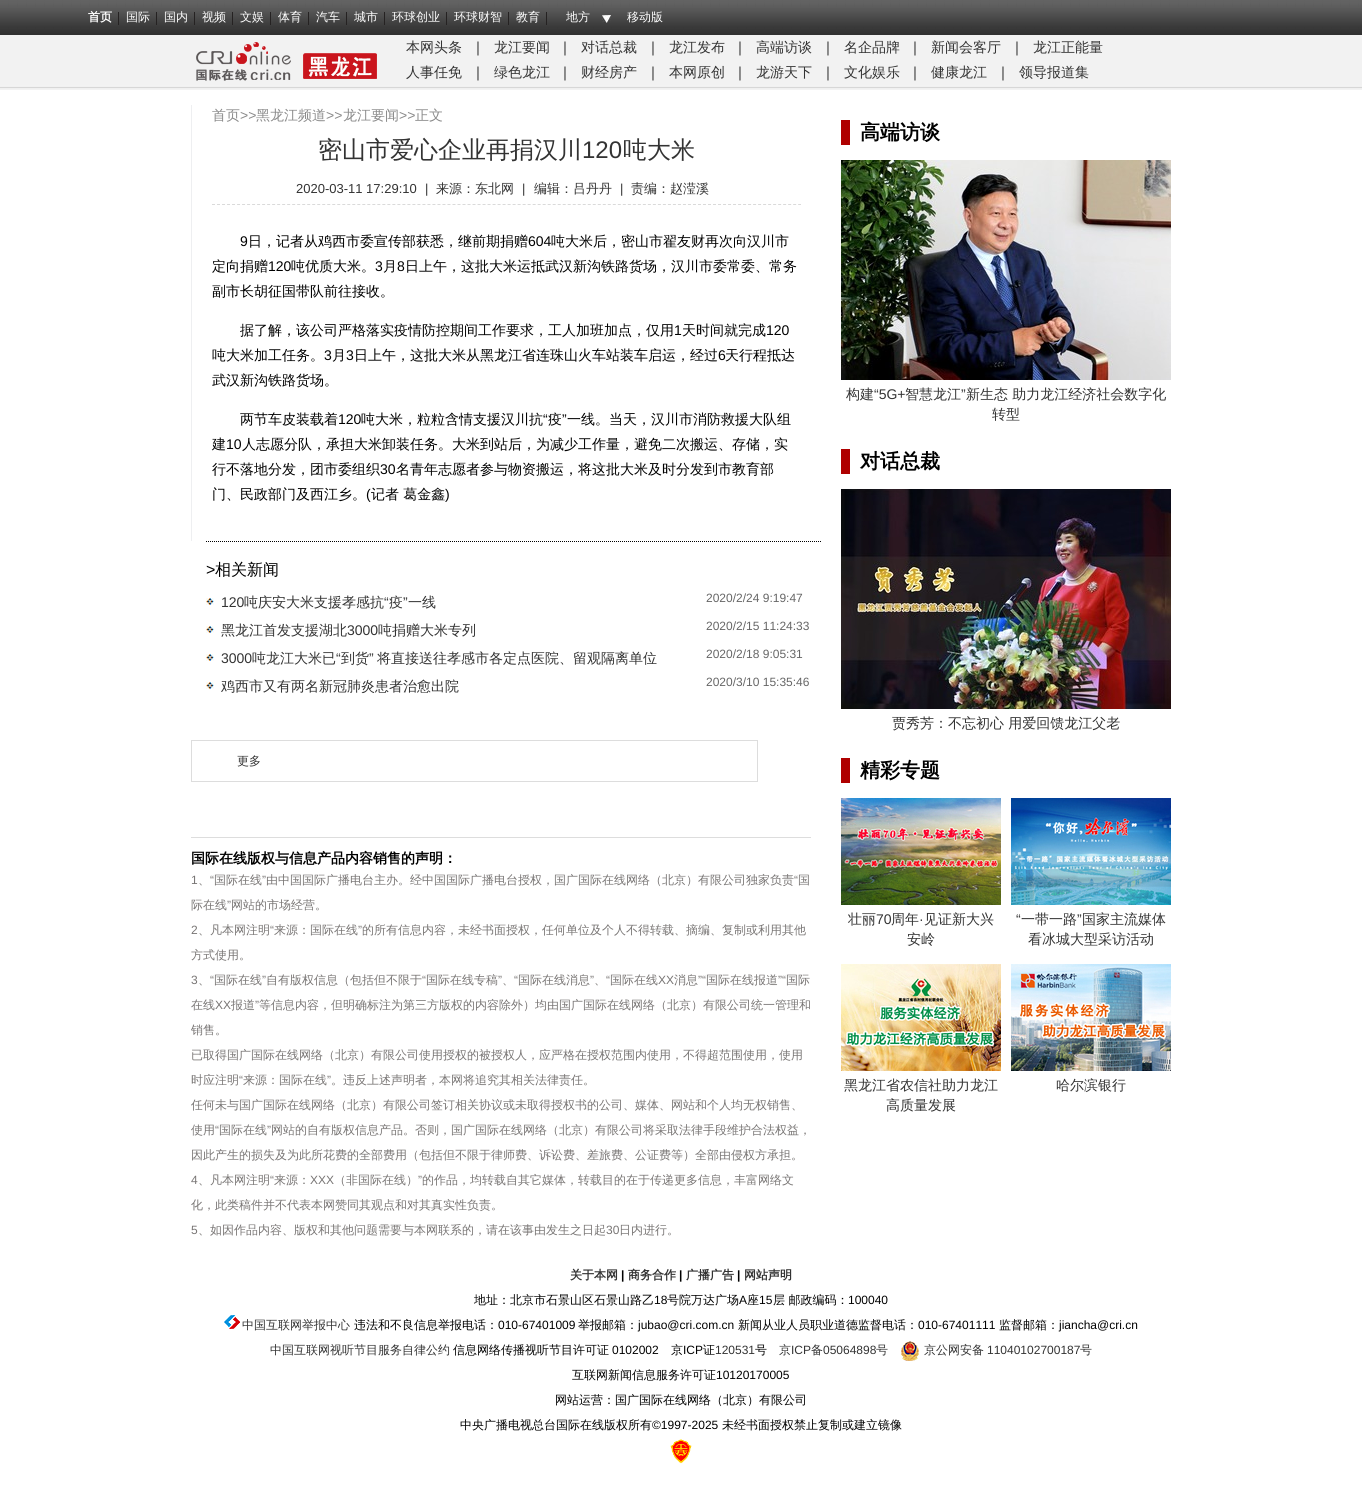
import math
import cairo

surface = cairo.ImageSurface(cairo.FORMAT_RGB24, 1362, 1507)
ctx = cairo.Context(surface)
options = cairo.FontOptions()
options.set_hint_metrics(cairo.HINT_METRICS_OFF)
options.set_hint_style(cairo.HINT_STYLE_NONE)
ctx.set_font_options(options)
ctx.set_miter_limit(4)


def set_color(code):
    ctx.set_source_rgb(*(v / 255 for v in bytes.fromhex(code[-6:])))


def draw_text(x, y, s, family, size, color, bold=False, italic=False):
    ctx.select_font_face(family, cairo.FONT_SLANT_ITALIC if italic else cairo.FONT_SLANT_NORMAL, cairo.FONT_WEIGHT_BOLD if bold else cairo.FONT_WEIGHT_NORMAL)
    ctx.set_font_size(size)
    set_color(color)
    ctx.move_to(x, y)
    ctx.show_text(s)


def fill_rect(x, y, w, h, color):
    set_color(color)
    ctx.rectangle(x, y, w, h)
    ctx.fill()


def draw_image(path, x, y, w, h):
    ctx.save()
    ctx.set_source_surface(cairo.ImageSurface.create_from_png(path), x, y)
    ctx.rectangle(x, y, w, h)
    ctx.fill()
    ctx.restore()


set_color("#ffffff")
ctx.paint()
draw_image("assets/img1.png", 0, 0, 1362, 35)
fill_rect(118, 12, 1, 13, "#252222")
draw_text(88, 21, "首页", "WenQuanYi Zen Hei", 12, "#ffffff", bold=True)
fill_rect(156, 12, 1, 13, "#252222")
draw_text(126, 21, "国际", "WenQuanYi Zen Hei Medium", 12, "#ffffff")
fill_rect(194, 12, 1, 13, "#252222")
draw_text(164, 21, "国内", "WenQuanYi Zen Hei Medium", 12, "#ffffff")
fill_rect(232, 12, 1, 13, "#252222")
draw_text(202, 21, "视频", "WenQuanYi Zen Hei Medium", 12, "#ffffff")
fill_rect(270, 12, 1, 13, "#252222")
draw_text(240, 21, "文娱", "WenQuanYi Zen Hei Medium", 12, "#ffffff")
fill_rect(308, 12, 1, 13, "#252222")
draw_text(278, 21, "体育", "WenQuanYi Zen Hei Medium", 12, "#ffffff")
fill_rect(346, 12, 1, 13, "#252222")
draw_text(316, 21, "汽车", "WenQuanYi Zen Hei Medium", 12, "#ffffff")
fill_rect(384, 12, 1, 13, "#252222")
draw_text(354, 21, "城市", "WenQuanYi Zen Hei Medium", 12, "#ffffff")
fill_rect(446, 12, 1, 13, "#252222")
draw_text(392, 21, "环球创业", "WenQuanYi Zen Hei Medium", 12, "#ffffff")
fill_rect(508, 12, 1, 13, "#252222")
draw_text(454, 21, "环球财智", "WenQuanYi Zen Hei Medium", 12, "#ffffff")
fill_rect(546, 12, 1, 13, "#252222")
draw_text(516, 21, "教育", "WenQuanYi Zen Hei Medium", 12, "#ffffff")
draw_image("assets/img2.png", 602, 15, 9, 8)
draw_text(566, 21, "地方", "WenQuanYi Zen Hei Medium", 12, "#ffffff")
draw_text(627, 21, "移动版", "WenQuanYi Zen Hei Medium", 12, "#ffffff")
draw_image("assets/img3.png", 0, 35, 1362, 55)
draw_image("assets/img4.png", 196, 42, 181, 39)
draw_text(406, 52, "本网头条", "WenQuanYi Zen Hei Medium", 14, "#333333")
draw_text(471, 52, "｜", "WenQuanYi Zen Hei Medium", 14, "#000000")
draw_text(494, 52, "龙江要闻", "WenQuanYi Zen Hei Medium", 14, "#333333")
draw_text(558, 52, "｜", "WenQuanYi Zen Hei Medium", 14, "#000000")
draw_text(581, 52, "对话总裁", "WenQuanYi Zen Hei Medium", 14, "#333333")
draw_text(646, 52, "｜", "WenQuanYi Zen Hei Medium", 14, "#000000")
draw_text(669, 52, "龙江发布", "WenQuanYi Zen Hei Medium", 14, "#333333")
draw_text(733, 52, "｜", "WenQuanYi Zen Hei Medium", 14, "#000000")
draw_text(756, 52, "高端访谈", "WenQuanYi Zen Hei Medium", 14, "#333333")
draw_text(821, 52, "｜", "WenQuanYi Zen Hei Medium", 14, "#000000")
draw_text(844, 52, "名企品牌", "WenQuanYi Zen Hei Medium", 14, "#333333")
draw_text(908, 52, "｜", "WenQuanYi Zen Hei Medium", 14, "#000000")
draw_text(931, 52, "新闻会客厅", "WenQuanYi Zen Hei Medium", 14, "#333333")
draw_text(1010, 52, "｜", "WenQuanYi Zen Hei Medium", 14, "#000000")
draw_text(1033, 52, "龙江正能量", "WenQuanYi Zen Hei Medium", 14, "#333333")
draw_text(406, 77, "人事任免", "WenQuanYi Zen Hei Medium", 14, "#333333")
draw_text(471, 77, "｜", "WenQuanYi Zen Hei Medium", 14, "#000000")
draw_text(494, 77, "绿色龙江", "WenQuanYi Zen Hei Medium", 14, "#333333")
draw_text(558, 77, "｜", "WenQuanYi Zen Hei Medium", 14, "#000000")
draw_text(581, 77, "财经房产", "WenQuanYi Zen Hei Medium", 14, "#333333")
draw_text(646, 77, "｜", "WenQuanYi Zen Hei Medium", 14, "#000000")
draw_text(669, 77, "本网原创", "WenQuanYi Zen Hei Medium", 14, "#333333")
draw_text(733, 77, "｜", "WenQuanYi Zen Hei Medium", 14, "#000000")
draw_text(756, 77, "龙游天下", "WenQuanYi Zen Hei Medium", 14, "#333333")
draw_text(821, 77, "｜", "WenQuanYi Zen Hei Medium", 14, "#000000")
draw_text(844, 77, "文化娱乐", "WenQuanYi Zen Hei Medium", 14, "#333333")
draw_text(908, 77, "｜", "WenQuanYi Zen Hei Medium", 14, "#000000")
draw_text(931, 77, "健康龙江", "WenQuanYi Zen Hei Medium", 14, "#333333")
draw_text(996, 77, "｜", "WenQuanYi Zen Hei Medium", 14, "#000000")
draw_text(1019, 77, "领导报道集", "WenQuanYi Zen Hei Medium", 14, "#333333")
fill_rect(191, 105, 1, 436, "#eeeff1")
draw_text(212, 120, "首页", "WenQuanYi Zen Hei Medium", 14, "#8a8a8a")
draw_text(240, 120, ">>", "Liberation Sans", 14, "#8a8a8a")
draw_text(256, 120, "黑龙江频道", "WenQuanYi Zen Hei Medium", 14, "#8a8a8a")
draw_text(326, 120, ">>", "Liberation Sans", 14, "#8a8a8a")
draw_text(343, 120, "龙江要闻", "WenQuanYi Zen Hei Medium", 14, "#8a8a8a")
draw_text(399, 120, ">>", "Liberation Sans", 14, "#8a8a8a")
draw_text(415, 120, "正文", "WenQuanYi Zen Hei Medium", 14, "#8a8a8a")
draw_text(318, 158, "密山市爱心企业再捐汉川", "WenQuanYi Zen Hei Medium", 24, "#333333")
draw_text(582, 158, "120", "Liberation Sans", 24, "#333333")
draw_text(623, 158, "吨大米", "WenQuanYi Zen Hei Medium", 24, "#333333")
ctx.new_path()
ctx.move_to(212, 204.5)
ctx.line_to(801, 204.5)
set_color("#dadada")
ctx.set_line_width(1)
ctx.set_dash([3, 2.01])
ctx.stroke()
draw_text(296, 193, "2020-03-11 17:29:10", "Liberation Sans", 13, "#333333")
draw_text(425, 193, "|", "Liberation Sans", 13, "#333333")
draw_text(436, 193, "来源：", "WenQuanYi Zen Hei Medium", 13, "#333333")
draw_text(475, 193, "东北网", "WenQuanYi Zen Hei Medium", 13, "#333333")
draw_text(522, 193, "|", "Liberation Sans", 13, "#333333")
draw_text(534, 193, "编辑：吕丹丹", "WenQuanYi Zen Hei Medium", 13, "#333333")
draw_text(620, 193, "|", "Liberation Sans", 13, "#333333")
draw_text(631, 193, "责编：赵滢溪", "WenQuanYi Zen Hei Medium", 13, "#333333")
draw_text(240, 246, "9", "Liberation Sans", 14, "#000000")
draw_text(248, 246, "日，记者从鸡西市委宣传部获悉，继前期捐赠", "WenQuanYi Zen Hei Medium", 14, "#000000")
draw_text(528, 246, "604", "Liberation Sans", 14, "#000000")
draw_text(551, 246, "吨大米后，密山市翟友财再次向汉川市", "WenQuanYi Zen Hei Medium", 14, "#000000")
draw_text(212, 271, "定向捐赠", "WenQuanYi Zen Hei Medium", 14, "#000000")
draw_text(268, 271, "120", "Liberation Sans", 14, "#000000")
draw_text(291, 271, "吨优质大米。", "WenQuanYi Zen Hei Medium", 14, "#000000")
draw_text(375, 271, "3", "Liberation Sans", 14, "#000000")
draw_text(383, 271, "月", "WenQuanYi Zen Hei Medium", 14, "#000000")
draw_text(397, 271, "8", "Liberation Sans", 14, "#000000")
draw_text(405, 271, "日上午，这批大米运抵武汉新沟铁路货场，汉川市委常委、常务", "WenQuanYi Zen Hei Medium", 14, "#000000")
draw_text(212, 296, "副市长胡征国带队前往接收。", "WenQuanYi Zen Hei Medium", 14, "#000000")
draw_text(240, 335, "据了解，该公司严格落实疫情防控期间工作要求，工人加班加点，仅用", "WenQuanYi Zen Hei Medium", 14, "#000000")
draw_text(674, 335, "1", "Liberation Sans", 14, "#000000")
draw_text(682, 335, "天时间就完成", "WenQuanYi Zen Hei Medium", 14, "#000000")
draw_text(766, 335, "120", "Liberation Sans", 14, "#000000")
draw_text(212, 360, "吨大米加工任务。", "WenQuanYi Zen Hei Medium", 14, "#000000")
draw_text(324, 360, "3", "Liberation Sans", 14, "#000000")
draw_text(332, 360, "月", "WenQuanYi Zen Hei Medium", 14, "#000000")
draw_text(346, 360, "3", "Liberation Sans", 14, "#000000")
draw_text(354, 360, "日上午，这批大米从黑龙江省连珠山火车站装车启运，经过", "WenQuanYi Zen Hei Medium", 14, "#000000")
draw_text(718, 360, "6", "Liberation Sans", 14, "#000000")
draw_text(725, 360, "天行程抵达", "WenQuanYi Zen Hei Medium", 14, "#000000")
draw_text(212, 385, "武汉新沟铁路货场。", "WenQuanYi Zen Hei Medium", 14, "#000000")
draw_text(240, 424, "两节车皮装载着", "WenQuanYi Zen Hei Medium", 14, "#000000")
draw_text(338, 424, "120", "Liberation Sans", 14, "#000000")
draw_text(361, 424, "吨大米，粒粒含情支援汉川抗", "WenQuanYi Zen Hei Medium", 14, "#000000")
draw_text(543, 424, "“", "Liberation Sans", 14, "#000000")
draw_text(548, 424, "疫", "WenQuanYi Zen Hei Medium", 14, "#000000")
draw_text(562, 424, "”", "Liberation Sans", 14, "#000000")
draw_text(567, 424, "一线。当天，汉川市消防救援大队组", "WenQuanYi Zen Hei Medium", 14, "#000000")
draw_text(212, 449, "建", "WenQuanYi Zen Hei Medium", 14, "#000000")
draw_text(226, 449, "10", "Liberation Sans", 14, "#000000")
draw_text(242, 449, "人志愿分队，承担大米卸装任务。大米到站后，为减少工作量，避免二次搬运、存储，实", "WenQuanYi Zen Hei Medium", 14, "#000000")
draw_text(212, 474, "行不落地分发，团市委组织", "WenQuanYi Zen Hei Medium", 14, "#000000")
draw_text(380, 474, "30", "Liberation Sans", 14, "#000000")
draw_text(396, 474, "名青年志愿者参与物资搬运，将这批大米及时分发到市教育部", "WenQuanYi Zen Hei Medium", 14, "#000000")
draw_text(212, 499, "门、民政部门及西江乡。", "WenQuanYi Zen Hei Medium", 14, "#000000")
draw_text(366, 499, "(", "Liberation Sans", 14, "#000000")
draw_text(371, 499, "记者 葛金鑫", "WenQuanYi Zen Hei Medium", 14, "#000000")
draw_text(445, 499, ")", "Liberation Sans", 14, "#000000")
ctx.new_path()
ctx.move_to(206, 541.5)
ctx.line_to(821, 541.5)
ctx.set_dash([1, 1])
ctx.stroke()
draw_text(206, 575, ">", "Liberation Sans", 16, "#000000")
draw_text(215, 575, "相关新闻", "WenQuanYi Zen Hei Medium", 16, "#000000")
draw_image("assets/img5.png", 206, 598, 8, 7)
draw_text(221, 607, "120", "Liberation Sans", 14, "#333333")
draw_text(244, 607, "吨庆安大米支援孝感抗", "WenQuanYi Zen Hei Medium", 14, "#333333")
draw_text(384, 607, "“", "Liberation Sans", 14, "#333333")
draw_text(389, 607, "疫", "WenQuanYi Zen Hei Medium", 14, "#333333")
draw_text(403, 607, "”", "Liberation Sans", 14, "#333333")
draw_text(408, 607, "一线", "WenQuanYi Zen Hei Medium", 14, "#333333")
draw_text(706, 602, "2020/2/24 9:19:47", "Liberation Sans", 12, "#666666")
draw_image("assets/img5.png", 206, 626, 8, 7)
draw_text(221, 635, "黑龙江首发支援湖北", "WenQuanYi Zen Hei Medium", 14, "#333333")
draw_text(347, 635, "3000", "Liberation Sans", 14, "#333333")
draw_text(378, 635, "吨捐赠大米专列", "WenQuanYi Zen Hei Medium", 14, "#333333")
draw_text(706, 630, "2020/2/15 11:24:33", "Liberation Sans", 12, "#666666")
draw_image("assets/img5.png", 206, 654, 8, 7)
draw_text(221, 663, "3000", "Liberation Sans", 14, "#333333")
draw_text(252, 663, "吨龙江大米已", "WenQuanYi Zen Hei Medium", 14, "#333333")
draw_text(336, 663, "“", "Liberation Sans", 14, "#333333")
draw_text(341, 663, "到货", "WenQuanYi Zen Hei Medium", 14, "#333333")
draw_text(369, 663, "”", "Liberation Sans", 14, "#333333")
draw_text(377, 663, "将直接送往孝感市各定点医院、留观隔离单位", "WenQuanYi Zen Hei Medium", 14, "#333333")
draw_text(706, 658, "2020/2/18 9:05:31", "Liberation Sans", 12, "#666666")
draw_image("assets/img5.png", 206, 682, 8, 7)
draw_text(221, 691, "鸡西市又有两名新冠肺炎患者治愈出院", "WenQuanYi Zen Hei Medium", 14, "#333333")
draw_text(706, 686, "2020/3/10 15:35:46", "Liberation Sans", 12, "#666666")
ctx.rectangle(191.5, 740.5, 566, 41)
set_color("#dddddd")
ctx.set_dash([])
ctx.stroke()
draw_text(237, 765, "更多", "WenQuanYi Zen Hei Medium", 12, "#333333")
fill_rect(191, 837, 620, 1, "#dddddd")
draw_text(191, 863, "国际在线版权与信息产品内容销售的声明：", "WenQuanYi Zen Hei", 14, "#000000", bold=True)
draw_text(191, 884, "1", "Liberation Sans", 12, "#787574")
draw_text(210, 884, "“", "Liberation Sans", 12, "#787574")
draw_text(214, 884, "国际在线", "WenQuanYi Zen Hei Medium", 12, "#787574")
draw_text(262, 884, "”", "Liberation Sans", 12, "#787574")
draw_text(266, 884, "由中国国际广播电台主办。经中国国际广播电台授权，国广国际在线网络（北京）有限公司独家负责", "WenQuanYi Zen Hei Medium", 12, "#787574")
draw_text(794, 884, "“", "Liberation Sans", 12, "#787574")
draw_text(798, 884, "国", "WenQuanYi Zen Hei Medium", 12, "#787574")
draw_text(198, 884, "、", "WenQuanYi Zen Hei Medium", 12, "#787574")
draw_text(191, 909, "际在线", "WenQuanYi Zen Hei Medium", 12, "#787574")
draw_text(227, 909, "”", "Liberation Sans", 12, "#787574")
draw_text(231, 909, "网站的市场经营。", "WenQuanYi Zen Hei Medium", 12, "#787574")
draw_text(191, 934, "2", "Liberation Sans", 12, "#787574")
draw_text(198, 934, "、凡本网注明", "WenQuanYi Zen Hei Medium", 12, "#787574")
draw_text(270, 934, "“", "Liberation Sans", 12, "#787574")
draw_text(274, 934, "来源：国际在线", "WenQuanYi Zen Hei Medium", 12, "#787574")
draw_text(358, 934, "”", "Liberation Sans", 12, "#787574")
draw_text(362, 934, "的所有信息内容，未经书面授权，任何单位及个人不得转载、摘编、复制或利用其他", "WenQuanYi Zen Hei Medium", 12, "#787574")
draw_text(191, 959, "方式使用。", "WenQuanYi Zen Hei Medium", 12, "#787574")
draw_text(191, 984, "3", "Liberation Sans", 12, "#787574")
draw_text(210, 984, "“", "Liberation Sans", 12, "#787574")
draw_text(214, 984, "国际在线", "WenQuanYi Zen Hei Medium", 12, "#787574")
draw_text(262, 984, "”", "Liberation Sans", 12, "#787574")
draw_text(266, 984, "自有版权信息（包括但不限于", "WenQuanYi Zen Hei Medium", 12, "#787574")
draw_text(422, 984, "“", "Liberation Sans", 12, "#787574")
draw_text(426, 984, "国际在线专稿", "WenQuanYi Zen Hei Medium", 12, "#787574")
draw_text(498, 984, "”", "Liberation Sans", 12, "#787574")
draw_text(514, 984, "“", "Liberation Sans", 12, "#787574")
draw_text(518, 984, "国际在线消息", "WenQuanYi Zen Hei Medium", 12, "#787574")
draw_text(590, 984, "”", "Liberation Sans", 12, "#787574")
draw_text(606, 984, "“", "Liberation Sans", 12, "#787574")
draw_text(610, 984, "国际在线", "WenQuanYi Zen Hei Medium", 12, "#787574")
draw_text(658, 984, "XX", "Liberation Sans", 12, "#787574")
draw_text(674, 984, "消息", "WenQuanYi Zen Hei Medium", 12, "#787574")
draw_text(698, 984, "”“", "Liberation Sans", 12, "#787574")
draw_text(706, 984, "国际在线报道", "WenQuanYi Zen Hei Medium", 12, "#787574")
draw_text(778, 984, "”“", "Liberation Sans", 12, "#787574")
draw_text(786, 984, "国际", "WenQuanYi Zen Hei Medium", 12, "#787574")
draw_text(198, 984, "、", "WenQuanYi Zen Hei Medium", 12, "#787574")
draw_text(502, 984, "、", "WenQuanYi Zen Hei Medium", 12, "#787574")
draw_text(594, 984, "、", "WenQuanYi Zen Hei Medium", 12, "#787574")
draw_text(191, 1009, "在线", "WenQuanYi Zen Hei Medium", 12, "#787574")
draw_text(215, 1009, "XX", "Liberation Sans", 12, "#787574")
draw_text(231, 1009, "报道", "WenQuanYi Zen Hei Medium", 12, "#787574")
draw_text(255, 1009, "”", "Liberation Sans", 12, "#787574")
draw_text(259, 1009, "等信息内容，但明确标注为第三方版权的内容除外）均由国广国际在线网络（北京）有限公司统一管理和", "WenQuanYi Zen Hei Medium", 12, "#787574")
draw_text(191, 1034, "销售。", "WenQuanYi Zen Hei Medium", 12, "#787574")
draw_text(191, 1059, "已取得国广国际在线网络（北京）有限公司使用授权的被授权人，应严格在授权范围内使用，不得超范围使用，使用", "WenQuanYi Zen Hei Medium", 12, "#787574")
draw_text(191, 1084, "时应注明", "WenQuanYi Zen Hei Medium", 12, "#787574")
draw_text(239, 1084, "“", "Liberation Sans", 12, "#787574")
draw_text(243, 1084, "来源：国际在线", "WenQuanYi Zen Hei Medium", 12, "#787574")
draw_text(327, 1084, "”", "Liberation Sans", 12, "#787574")
draw_text(331, 1084, "。违反上述声明者，本网将追究其相关法律责任。", "WenQuanYi Zen Hei Medium", 12, "#787574")
draw_text(191, 1109, "任何未与国广国际在线网络（北京）有限公司签订相关协议或未取得授权书的公司、媒体、网站和个人均无权销售、", "WenQuanYi Zen Hei Medium", 12, "#787574")
draw_text(191, 1134, "使用", "WenQuanYi Zen Hei Medium", 12, "#787574")
draw_text(215, 1134, "“", "Liberation Sans", 12, "#787574")
draw_text(219, 1134, "国际在线", "WenQuanYi Zen Hei Medium", 12, "#787574")
draw_text(267, 1134, "”", "Liberation Sans", 12, "#787574")
draw_text(271, 1134, "网站的自有版权信息产品。否则，国广国际在线网络（北京）有限公司将采取法律手段维护合法权益，", "WenQuanYi Zen Hei Medium", 12, "#787574")
draw_text(191, 1159, "因此产生的损失及为此所花费的全部费用（包括但不限于律师费、诉讼费、差旅费、公证费等）全部由侵权方承担。", "WenQuanYi Zen Hei Medium", 12, "#787574")
draw_text(191, 1184, "4", "Liberation Sans", 12, "#787574")
draw_text(198, 1184, "、凡本网注明", "WenQuanYi Zen Hei Medium", 12, "#787574")
draw_text(270, 1184, "“", "Liberation Sans", 12, "#787574")
draw_text(274, 1184, "来源：", "WenQuanYi Zen Hei Medium", 12, "#787574")
draw_text(310, 1184, "XXX", "Liberation Sans", 12, "#787574")
draw_text(334, 1184, "（非国际在线）", "WenQuanYi Zen Hei Medium", 12, "#787574")
draw_text(418, 1184, "”", "Liberation Sans", 12, "#787574")
draw_text(422, 1184, "的作品，均转载自其它媒体，转载目的在于传递更多信息，丰富网络文", "WenQuanYi Zen Hei Medium", 12, "#787574")
draw_text(191, 1209, "化，此类稿件并不代表本网赞同其观点和对其真实性负责。", "WenQuanYi Zen Hei Medium", 12, "#787574")
draw_text(191, 1234, "5", "Liberation Sans", 12, "#787574")
draw_text(198, 1234, "、如因作品内容、版权和其他问题需要与本网联系的，请在该事由发生之日起", "WenQuanYi Zen Hei Medium", 12, "#787574")
draw_text(606, 1234, "30", "Liberation Sans", 12, "#787574")
draw_text(619, 1234, "日内进行。", "WenQuanYi Zen Hei Medium", 12, "#787574")
fill_rect(841, 120, 9, 25, "#af0000")
draw_text(860, 139, "高端访谈", "WenQuanYi Zen Hei", 20, "#000000", bold=True)
draw_image("assets/img6.png", 841, 160, 330, 220)
draw_text(846, 399, "构建", "WenQuanYi Zen Hei Medium", 14, "#333333")
draw_text(874, 399, "“5G+", "Liberation Sans", 14, "#333333")
draw_text(905, 399, "智慧龙江", "WenQuanYi Zen Hei Medium", 14, "#333333")
draw_text(961, 399, "”", "Liberation Sans", 14, "#333333")
draw_text(966, 399, "新生态 助力龙江经济社会数字化", "WenQuanYi Zen Hei Medium", 14, "#333333")
draw_text(992, 419, "转型", "WenQuanYi Zen Hei Medium", 14, "#333333")
fill_rect(841, 449, 9, 25, "#af0000")
draw_text(860, 468, "对话总裁", "WenQuanYi Zen Hei", 20, "#000000", bold=True)
draw_image("assets/img7.png", 841, 489, 330, 220)
draw_text(892, 728, "贾秀芳：不忘初心 用爱回馈龙江父老", "WenQuanYi Zen Hei Medium", 14, "#333333")
fill_rect(841, 758, 9, 25, "#af0000")
draw_text(860, 777, "精彩专题", "WenQuanYi Zen Hei", 20, "#000000", bold=True)
draw_image("assets/img8.png", 841, 798, 160, 107)
draw_text(848, 924, "壮丽", "WenQuanYi Zen Hei Medium", 14, "#333333")
draw_text(876, 924, "70", "Liberation Sans", 14, "#333333")
draw_text(891, 924, "周年", "WenQuanYi Zen Hei Medium", 14, "#333333")
draw_text(919, 924, "·", "Liberation Sans", 14, "#333333")
draw_text(924, 924, "见证新大兴", "WenQuanYi Zen Hei Medium", 14, "#333333")
draw_text(907, 944, "安岭", "WenQuanYi Zen Hei Medium", 14, "#333333")
draw_image("assets/img9.png", 1011, 798, 160, 107)
draw_text(1016, 924, "“", "Liberation Sans", 14, "#333333")
draw_text(1021, 924, "一带一路", "WenQuanYi Zen Hei Medium", 14, "#333333")
draw_text(1077, 924, "”", "Liberation Sans", 14, "#333333")
draw_text(1082, 924, "国家主流媒体", "WenQuanYi Zen Hei Medium", 14, "#333333")
draw_text(1028, 944, "看冰城大型采访活动", "WenQuanYi Zen Hei Medium", 14, "#333333")
draw_image("assets/img10.png", 841, 964, 160, 107)
draw_text(844, 1090, "黑龙江省农信社助力龙江", "WenQuanYi Zen Hei Medium", 14, "#333333")
draw_text(886, 1110, "高质量发展", "WenQuanYi Zen Hei Medium", 14, "#333333")
draw_image("assets/img11.png", 1011, 964, 160, 107)
draw_text(1056, 1090, "哈尔滨银行", "WenQuanYi Zen Hei Medium", 14, "#333333")
draw_text(570, 1279, "关于本网", "WenQuanYi Zen Hei", 12, "#333333", bold=True)
draw_text(621, 1279, "|", "Liberation Sans", 12, "#000000", bold=True)
draw_text(628, 1279, "商务合作", "WenQuanYi Zen Hei", 12, "#333333", bold=True)
draw_text(679, 1279, "|", "Liberation Sans", 12, "#000000", bold=True)
draw_text(686, 1279, "广播广告", "WenQuanYi Zen Hei", 12, "#333333", bold=True)
draw_text(737, 1279, "|", "Liberation Sans", 12, "#000000", bold=True)
draw_text(744, 1279, "网站声明", "WenQuanYi Zen Hei", 12, "#333333", bold=True)
draw_text(474, 1304, "地址：北京市石景山区石景山路乙", "WenQuanYi Zen Hei Medium", 12, "#000000")
draw_text(654, 1304, "18", "Liberation Sans", 12, "#000000")
draw_text(667, 1304, "号院万达广场", "WenQuanYi Zen Hei Medium", 12, "#000000")
draw_text(739, 1304, "A", "Liberation Sans", 12, "#000000")
draw_text(747, 1304, "座", "WenQuanYi Zen Hei Medium", 12, "#000000")
draw_text(759, 1304, "15", "Liberation Sans", 12, "#000000")
draw_text(773, 1304, "层 邮政编码：", "WenQuanYi Zen Hei Medium", 12, "#000000")
draw_text(848, 1304, "100040", "Liberation Sans", 12, "#000000")
draw_image("assets/img12.png", 224, 1315, 16, 14)
draw_text(242, 1329, "中国互联网举报中心", "WenQuanYi Zen Hei Medium", 12, "#333333")
draw_text(354, 1329, "违法和不良信息举报电话：", "WenQuanYi Zen Hei Medium", 12, "#000000")
draw_text(498, 1329, "010-67401009", "Liberation Sans", 12, "#000000")
draw_text(578, 1329, "举报邮箱：", "WenQuanYi Zen Hei Medium", 12, "#000000")
draw_text(638, 1329, "jubao@cri.com.cn", "Liberation Sans", 12, "#000000")
draw_text(738, 1329, "新闻从业人员职业道德监督电话：", "WenQuanYi Zen Hei Medium", 12, "#000000")
draw_text(918, 1329, "010-67401111", "Liberation Sans", 12, "#000000")
draw_text(999, 1329, "监督邮箱：", "WenQuanYi Zen Hei Medium", 12, "#000000")
draw_text(1059, 1329, "jiancha@cri.cn", "Liberation Sans", 12, "#000000")
draw_text(270, 1354, "中国互联网视听节目服务自律公约", "WenQuanYi Zen Hei Medium", 12, "#333333")
draw_text(453, 1354, "信息网络传播视听节目许可证", "WenQuanYi Zen Hei Medium", 12, "#000000")
draw_text(612, 1354, "0102002", "Liberation Sans", 12, "#000000")
draw_text(671, 1354, "京", "WenQuanYi Zen Hei Medium", 12, "#000000")
draw_text(683, 1354, "ICP", "Liberation Sans", 12, "#000000")
draw_text(703, 1354, "证", "WenQuanYi Zen Hei Medium", 12, "#000000")
draw_text(715, 1354, "120531", "Liberation Sans", 12, "#333333")
draw_text(755, 1354, "号", "WenQuanYi Zen Hei Medium", 12, "#000000")
draw_text(779, 1354, "京", "WenQuanYi Zen Hei Medium", 12, "#333333")
draw_text(791, 1354, "ICP", "Liberation Sans", 12, "#333333")
draw_text(811, 1354, "备", "WenQuanYi Zen Hei Medium", 12, "#333333")
draw_text(823, 1354, "05064898", "Liberation Sans", 12, "#333333")
draw_text(876, 1354, "号", "WenQuanYi Zen Hei Medium", 12, "#333333")
draw_image("assets/img13.png", 901, 1341, 18, 20)
draw_text(924, 1354, "京公网安备", "WenQuanYi Zen Hei Medium", 12, "#333333")
draw_text(987, 1354, "11040102700187", "Liberation Sans", 12, "#333333")
draw_text(1080, 1354, "号", "WenQuanYi Zen Hei Medium", 12, "#333333")
draw_text(572, 1379, "互联网新闻信息服务许可证", "WenQuanYi Zen Hei Medium", 12, "#000000")
draw_text(716, 1379, "10120170005", "Liberation Sans", 12, "#000000")
draw_text(555, 1404, "网站运营：国广国际在线网络（北京）有限公司", "WenQuanYi Zen Hei Medium", 12, "#000000")
draw_text(460, 1429, "中央广播电视总台国际在线版权所有", "WenQuanYi Zen Hei Medium", 12, "#000000")
draw_text(652, 1429, "©1997-2025", "Liberation Sans", 12, "#000000")
draw_text(722, 1429, "未经书面授权禁止复制或建立镜像", "WenQuanYi Zen Hei Medium", 12, "#000000")
draw_image("assets/img14.png", 670, 1439, 22, 25)
surface.write_to_png("output.png")
